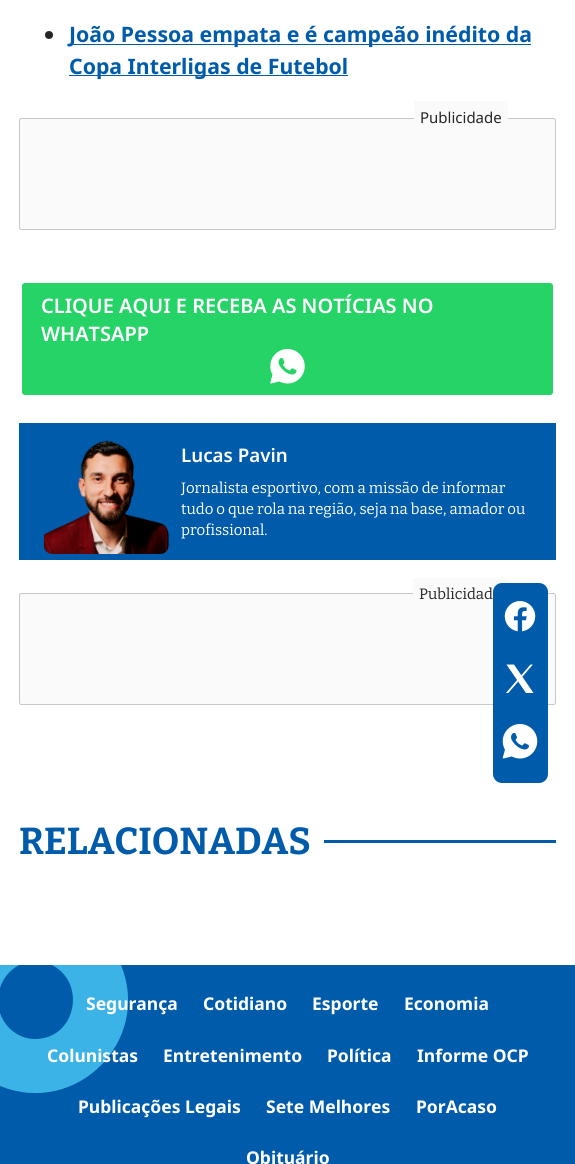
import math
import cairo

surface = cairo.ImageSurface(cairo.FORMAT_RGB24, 575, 1164)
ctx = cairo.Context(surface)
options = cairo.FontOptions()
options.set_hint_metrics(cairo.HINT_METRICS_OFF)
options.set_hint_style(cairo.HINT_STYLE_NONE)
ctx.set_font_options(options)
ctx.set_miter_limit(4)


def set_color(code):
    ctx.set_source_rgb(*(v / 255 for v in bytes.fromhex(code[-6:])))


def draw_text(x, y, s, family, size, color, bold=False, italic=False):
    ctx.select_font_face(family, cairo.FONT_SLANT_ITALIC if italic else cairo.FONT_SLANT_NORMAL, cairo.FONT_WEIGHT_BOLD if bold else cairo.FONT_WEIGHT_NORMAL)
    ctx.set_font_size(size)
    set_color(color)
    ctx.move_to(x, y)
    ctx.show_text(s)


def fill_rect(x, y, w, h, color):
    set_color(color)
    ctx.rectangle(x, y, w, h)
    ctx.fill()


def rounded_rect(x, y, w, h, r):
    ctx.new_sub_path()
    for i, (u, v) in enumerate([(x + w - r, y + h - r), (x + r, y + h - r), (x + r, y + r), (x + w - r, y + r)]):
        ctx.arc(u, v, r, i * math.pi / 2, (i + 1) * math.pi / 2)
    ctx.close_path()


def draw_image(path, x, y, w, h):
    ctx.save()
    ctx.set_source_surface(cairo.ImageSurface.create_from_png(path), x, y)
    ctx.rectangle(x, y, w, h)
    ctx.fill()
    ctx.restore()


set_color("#ffffff")
ctx.paint()
set_color("#272425")
ctx.arc(49, 35, 4, 0, 2 * math.pi)
ctx.fill()
fill_rect(69, 44, 462, 1, "#005baa")
draw_text(69, 42, "João Pessoa empata e é campeão inédito da", "Noto Sans", 21.25, "#005baa", bold=True)
fill_rect(69, 75, 279, 1, "#005baa")
draw_text(69, 74, "Copa Interligas de Futebol", "Noto Sans", 21.25, "#005baa", bold=True)
set_color("#fafafa")
rounded_rect(19.5, 118.5, 536, 111, 2)
ctx.fill_preserve()
set_color("#c7c7c7")
ctx.set_line_width(1)
ctx.stroke()
fill_rect(414, 101, 94, 18, "#fafafa")
draw_text(420, 123, "Publicidade", "Noto Sans", 15, "#272425")
set_color("#25d366")
rounded_rect(20.5, 281.5, 534, 115, 4.5)
ctx.fill_preserve()
set_color("#ffffff")
ctx.set_line_width(3)
ctx.stroke()
draw_text(41, 313, "CLIQUE AQUI E RECEBA AS NOTÍCIAS NO", "Noto Sans SemiBold", 20, "#ffffff")
draw_text(41, 341, "WHATSAPP", "Noto Sans SemiBold", 20, "#ffffff")
draw_image("assets/img1.png", 270, 349, 35, 35)
fill_rect(19, 423, 537, 137, "#005baa")
draw_image("assets/img2.png", 43, 440, 126, 114)
draw_text(181, 462, "Lucas Pavin", "Noto Sans SemiBold", 18.75, "#ffffff")
draw_text(181, 493, "Jornalista esportivo, com a missão de informar", "Bitter", 15, "#ffffff")
draw_text(181, 514, "tudo o que rola na região, seja na base, amador ou", "Bitter", 15, "#ffffff")
draw_text(181, 535, "profissional.", "Bitter", 15, "#ffffff")
set_color("#fafafa")
rounded_rect(19.5, 593.5, 536, 111, 2)
ctx.fill_preserve()
set_color("#c7c7c7")
ctx.set_line_width(1)
ctx.stroke()
fill_rect(413, 578, 95, 16, "#fafafa")
set_color("#005baa")
rounded_rect(493, 583, 55, 200, 9)
ctx.fill()
draw_image("assets/img3.png", 504, 601, 32, 31)
draw_image("assets/img4.png", 506, 664, 28, 29)
draw_image("assets/img5.png", 502, 724, 36, 35)
draw_text(419, 599, "Publicidad", "Bitter", 15, "#272425")
draw_text(19, 854, "RELACIONADAS", "Bitter", 37.5, "#005baa", bold=True)
fill_rect(324, 840, 232, 3, "#005baa")
fill_rect(0, 965, 575, 199, "#005baa")
set_color("#3bb3e7")
ctx.set_fill_rule(cairo.FILL_RULE_EVEN_ODD)
ctx.new_path()
ctx.move_to(35, 1039)
ctx.curve_to(19, 1039, 5, 1028, 0, 1013)
ctx.line_to(0, 1086)
ctx.curve_to(76, 1117, 152, 1041, 121, 965)
ctx.line_to(52, 965)
ctx.curve_to(87, 983, 76, 1039, 35, 1039)
ctx.close_path()
ctx.move_to(0, 965)
ctx.line_to(0, 988)
ctx.curve_to(3, 978, 10, 970, 19, 965)
ctx.close_path()
ctx.fill()
draw_text(86, 1010, "Segurança", "Noto Sans", 17.5, "#ffffff", bold=True)
draw_text(203, 1010, "Cotidiano", "Noto Sans", 17.5, "#ffffff", bold=True)
draw_text(312, 1010, "Esporte", "Noto Sans", 17.5, "#ffffff", bold=True)
draw_text(404, 1010, "Economia", "Noto Sans", 17.5, "#ffffff", bold=True)
draw_text(47, 1062, "Colunistas", "Noto Sans", 17.5, "#ffffff", bold=True)
draw_text(163, 1062, "Entretenimento", "Noto Sans", 17.5, "#ffffff", bold=True)
draw_text(327, 1062, "Política", "Noto Sans", 17.5, "#ffffff", bold=True)
draw_text(417, 1062, "Informe OCP", "Noto Sans", 17.5, "#ffffff", bold=True)
draw_text(78, 1113, "Publicações Legais", "Noto Sans", 17.5, "#ffffff", bold=True)
draw_text(266, 1113, "Sete Melhores", "Noto Sans", 17.5, "#ffffff", bold=True)
draw_text(416, 1113, "PorAcaso", "Noto Sans", 17.5, "#ffffff", bold=True)
draw_text(246, 1164, "Obituário", "Noto Sans", 17.5, "#ffffff", bold=True)
surface.write_to_png("output.png")
